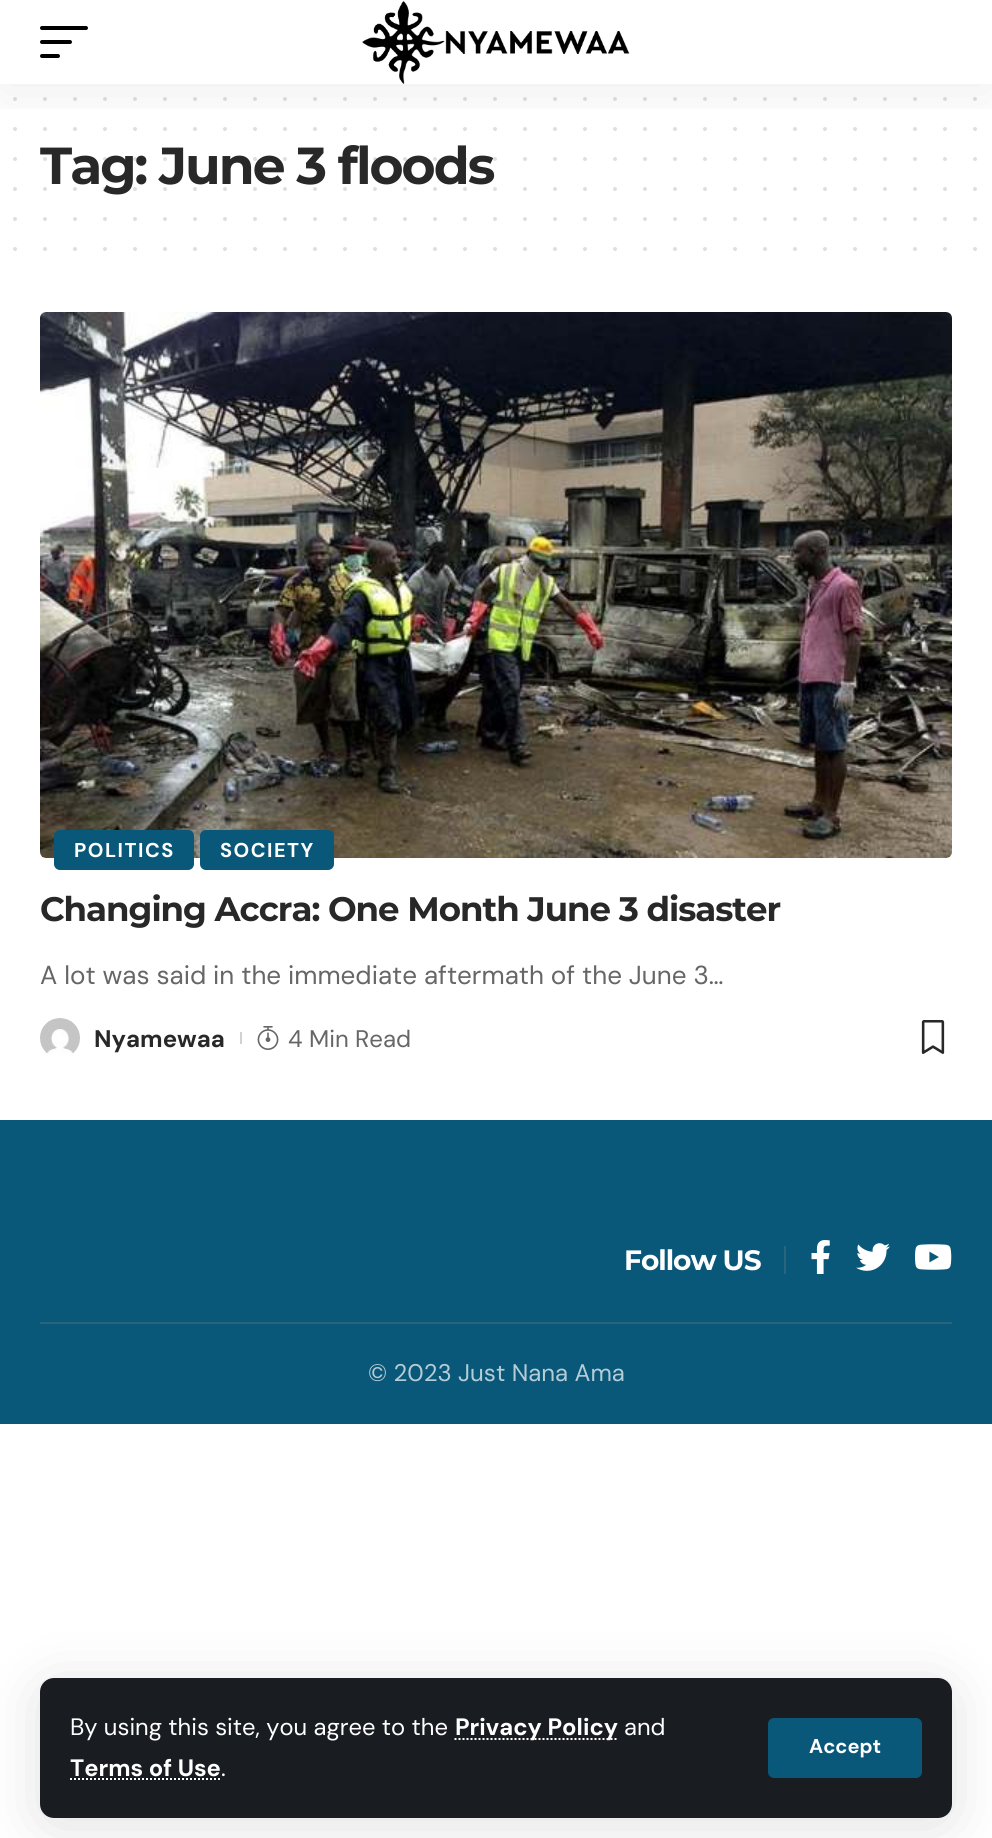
import math
import cairo

surface = cairo.ImageSurface(cairo.FORMAT_RGB24, 992, 1838)
ctx = cairo.Context(surface)
options = cairo.FontOptions()
options.set_hint_metrics(cairo.HINT_METRICS_OFF)
options.set_hint_style(cairo.HINT_STYLE_NONE)
ctx.set_font_options(options)
ctx.set_miter_limit(4)


def set_color(code):
    ctx.set_source_rgb(*(v / 255 for v in bytes.fromhex(code[-6:])))


def draw_text(x, y, s, family, size, color, bold=False, italic=False):
    ctx.select_font_face(family, cairo.FONT_SLANT_ITALIC if italic else cairo.FONT_SLANT_NORMAL, cairo.FONT_WEIGHT_BOLD if bold else cairo.FONT_WEIGHT_NORMAL)
    ctx.set_font_size(size)
    set_color(color)
    ctx.move_to(x, y)
    ctx.show_text(s)


def draw_spaced(x, y, s, letter, word):
    ctx.move_to(x, y)
    for ch in s:
        ctx.show_text(ch)
        ctx.rel_move_to(letter + word * (ch == ' '), 0)


def fill_rect(x, y, w, h, color):
    set_color(color)
    ctx.rectangle(x, y, w, h)
    ctx.fill()


def rounded_rect(x, y, w, h, r):
    ctx.new_sub_path()
    for i, (u, v) in enumerate([(x + w - r, y + h - r), (x + r, y + h - r), (x + r, y + r), (x + w - r, y + r)]):
        ctx.arc(u, v, r, i * math.pi / 2, (i + 1) * math.pi / 2)
    ctx.close_path()


def draw_shadow(x, y, w, h, r, blur, alpha):
    ctx.push_group_with_content(cairo.CONTENT_ALPHA)
    ctx.set_operator(cairo.OPERATOR_SOURCE)
    for i in range(15, -16, -2):
        e = blur * i / 6
        if min(w, h) + 2 * e > 0:
            ctx.set_source_rgba(0, 0, 0, alpha * math.erfc((i - 1) / 8.5) / 2)
            rounded_rect(x - e, y - e, w + 2 * e, h + 2 * e, max(0, min(r + e + blur * .6, min(w, h) / 2 + e)))
            ctx.fill()
    ctx.mask(ctx.pop_group())


def draw_image(path, x, y, w, h):
    ctx.save()
    ctx.set_source_surface(cairo.ImageSurface.create_from_png(path), x, y)
    ctx.rectangle(x, y, w, h)
    ctx.fill()
    ctx.restore()


set_color("#ffffff")
ctx.paint()
ctx.new_path()
ctx.move_to(15, 99)
ctx.line_to(975.4, 99)
set_color("#dfdfdf")
ctx.set_line_width(4)
ctx.set_line_cap(cairo.LINE_CAP_ROUND)
ctx.set_dash([0, 30])
ctx.stroke()
ctx.new_path()
ctx.move_to(15, 129)
ctx.line_to(975.4, 129)
ctx.stroke()
ctx.select_font_face("Montserrat", cairo.FONT_SLANT_NORMAL, cairo.FONT_WEIGHT_BOLD)
ctx.set_font_size(52)
set_color("#282828")
draw_spaced(40, 184, "Tag: June 3 floods", -2, 0)
ctx.new_path()
ctx.move_to(15, 159)
ctx.line_to(975.4, 159)
ctx.set_source_rgba(0.157, 0.157, 0.157, 0.15)
ctx.stroke()
ctx.new_path()
ctx.move_to(15, 189)
ctx.line_to(975.4, 189)
ctx.stroke()
ctx.new_path()
ctx.move_to(15, 219)
ctx.line_to(975.4, 219)
set_color("#dfdfdf")
ctx.stroke()
ctx.new_path()
ctx.move_to(15, 249)
ctx.line_to(975.4, 249)
ctx.stroke()
draw_image("assets/img1.png", 40, 312, 912, 546)
set_color("#095879")
rounded_rect(54, 830, 140, 40, 6)
ctx.fill()
ctx.select_font_face("DM Sans", cairo.FONT_SLANT_NORMAL, cairo.FONT_WEIGHT_BOLD)
ctx.set_font_size(20)
set_color("#ffffff")
draw_spaced(74, 857, "POLITICS", 1.5, 0)
set_color("#095879")
rounded_rect(200, 830, 134, 40, 6)
ctx.fill()
set_color("#ffffff")
draw_spaced(220, 857, "SOCIETY", 1.5, 0)
ctx.select_font_face("Montserrat", cairo.FONT_SLANT_NORMAL, cairo.FONT_WEIGHT_BOLD)
ctx.set_font_size(34)
set_color("#282828")
draw_spaced(40, 921, "Changing Accra: One Month June 3 disaster", -1, 0)
draw_text(40, 984, "A lot was said in the immediate aftermath of the June 3…", "DM Sans", 26, "#666666")
draw_image("assets/img2.png", 40, 1018, 40, 36)
draw_text(94, 1047, "Nyamewaa", "DM Sans", 24, "#282828", bold=True)
fill_rect(240, 1032, 2, 12, "#d1d1d1")
draw_image("assets/img3.png", 257, 1026, 22, 24)
draw_text(288, 1047, "4 Min Read", "DM Sans", 24, "#666666")
draw_image("assets/img4.png", 921, 1020, 24, 34)
fill_rect(0, 1120, 992, 304, "#095879")
fill_rect(784, 1246, 2, 28, "#29647d")
ctx.select_font_face("Montserrat", cairo.FONT_SLANT_NORMAL, cairo.FONT_WEIGHT_BOLD)
ctx.set_font_size(28)
set_color("#ffffff")
draw_spaced(624, 1270, "Follow US", -1, 0)
draw_image("assets/img5.png", 811, 1240, 19, 34)
draw_image("assets/img6.png", 856, 1243, 34, 28)
draw_image("assets/img7.png", 915, 1244, 37, 26)
fill_rect(40, 1322, 912, 2, "#29647d")
draw_text(368, 1381, "© 2023 Just Nana Ama", "DM Sans", 24, "#b5cdd7")
ctx.save()
ctx.rectangle(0, 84, 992, 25)
ctx.clip()
set_color("#000000")
draw_shadow(0, 8, 992, 84, 0, 30, 0.07)
ctx.restore()
set_color("#000000")
rounded_rect(40, 26, 48, 4, 2)
ctx.fill()
rounded_rect(40, 40, 32, 4, 2)
ctx.fill()
rounded_rect(40, 54, 20, 4, 2)
ctx.fill()
draw_image("assets/img8.png", 362, 1, 268, 83)
set_color("#000000")
draw_shadow(40, 1686, 912, 140, 14, 30, 0.12)
set_color("#191c20")
rounded_rect(40, 1678, 912, 140, 14)
ctx.fill()
draw_text(70, 1735, "By using this site, you agree to the", "DM Sans", 23.75, "#ffffff")
ctx.new_path()
ctx.move_to(454.5, 1739)
ctx.line_to(618, 1739)
ctx.set_line_width(2)
ctx.set_line_cap(cairo.LINE_CAP_BUTT)
ctx.set_dash([2, 2])
ctx.stroke()
draw_text(455, 1735, "Privacy Policy", "DM Sans", 23.75, "#ffffff", bold=True)
draw_text(624, 1735, "and", "DM Sans", 23.75, "#ffffff")
draw_text(70, 1776, "Terms of Use", "DM Sans", 23.75, "#ffffff", bold=True)
ctx.new_path()
ctx.move_to(70, 1779)
ctx.line_to(221, 1779)
ctx.stroke()
draw_text(221, 1776, ".", "DM Sans", 23.75, "#ffffff")
set_color("#095879")
rounded_rect(768, 1718, 154, 60, 6)
ctx.fill()
draw_text(809, 1753, "Accept", "DM Sans", 20, "#ffffff", bold=True)
surface.write_to_png("output.png")
